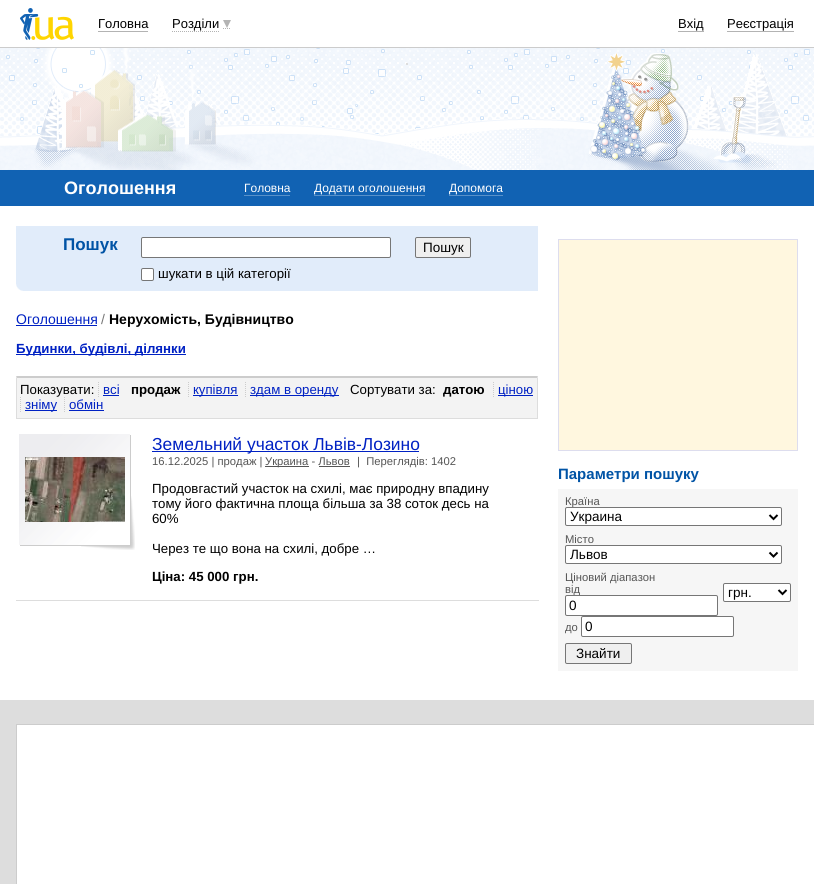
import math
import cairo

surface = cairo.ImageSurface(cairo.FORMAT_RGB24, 814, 884)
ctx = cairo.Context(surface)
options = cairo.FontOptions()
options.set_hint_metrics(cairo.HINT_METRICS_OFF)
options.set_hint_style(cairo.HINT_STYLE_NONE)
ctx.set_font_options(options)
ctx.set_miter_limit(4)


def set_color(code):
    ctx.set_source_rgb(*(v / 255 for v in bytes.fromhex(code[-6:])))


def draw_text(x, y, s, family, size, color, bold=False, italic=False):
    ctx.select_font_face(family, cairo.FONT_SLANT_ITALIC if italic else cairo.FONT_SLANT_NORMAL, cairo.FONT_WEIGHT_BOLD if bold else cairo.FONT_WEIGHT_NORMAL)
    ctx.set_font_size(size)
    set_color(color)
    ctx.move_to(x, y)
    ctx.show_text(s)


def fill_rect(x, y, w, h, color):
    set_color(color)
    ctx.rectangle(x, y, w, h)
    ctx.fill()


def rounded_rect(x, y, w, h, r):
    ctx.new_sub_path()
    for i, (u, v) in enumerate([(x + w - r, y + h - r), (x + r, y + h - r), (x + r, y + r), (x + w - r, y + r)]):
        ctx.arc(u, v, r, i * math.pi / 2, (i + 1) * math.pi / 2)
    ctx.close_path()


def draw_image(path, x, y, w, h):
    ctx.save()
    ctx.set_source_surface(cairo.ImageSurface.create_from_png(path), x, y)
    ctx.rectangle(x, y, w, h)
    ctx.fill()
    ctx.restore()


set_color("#ffffff")
ctx.paint()
fill_rect(0, 47, 814, 1, "#cccccc")
draw_image("assets/img1.png", 20, 8, 54, 32)
draw_text(98, 28, "Головна", "Liberation Sans", 13, "#000000")
fill_rect(98, 31, 50, 1, "#b3b3b3")
ctx.new_path()
ctx.move_to(172, 31.5)
ctx.line_to(219, 31.5)
ctx.move_to(223, 28.5)
ctx.line_to(231, 28.5)
ctx.set_line_width(1)
ctx.set_dash([1, 1])
ctx.stroke()
draw_text(172, 28, "Розділи", "Liberation Sans", 13, "#000000")
set_color("#b3b3b3")
ctx.new_path()
ctx.move_to(223, 20)
ctx.line_to(231, 20)
ctx.line_to(227, 28)
ctx.close_path()
ctx.fill()
draw_text(678, 28, "Вхід", "Liberation Sans", 13, "#000000")
fill_rect(678, 31, 26, 1, "#b3b3b3")
draw_text(727, 28, "Реєстрація", "Liberation Sans", 13, "#000000")
fill_rect(727, 31, 67, 1, "#b3b3b3")
draw_image("assets/img2.png", 0, 48, 814, 122)
fill_rect(406, 63, 2, 2, "#dddddd")
fill_rect(0, 170, 814, 36, "#1162b3")
draw_text(64, 194, "Оголошення", "Liberation Sans", 18, "#ffffff", bold=True)
draw_text(244, 192, "Головна", "Liberation Sans", 12, "#ffffff")
fill_rect(244, 195, 46, 1, "#5891ca")
draw_text(314, 192, "Додати оголошення", "Liberation Sans", 12, "#ffffff")
fill_rect(314, 195, 111, 1, "#5891ca")
draw_text(449, 192, "Допомога", "Liberation Sans", 12, "#ffffff")
fill_rect(449, 195, 54, 1, "#5891ca")
fill_rect(16, 226, 522, 65, "#e1ecfa")
draw_image("assets/img3.png", 16, 284, 7, 7)
draw_text(63, 250, "Пошук", "Liberation Sans", 17, "#0053a5", bold=True)
set_color("#efefef")
rounded_rect(415.5, 237.5, 55, 20, 1.5)
ctx.fill_preserve()
set_color("#767676")
ctx.set_dash([])
ctx.stroke()
draw_text(423, 252, "Пошук", "Liberation Sans", 13.5, "#000000")
set_color("#ffffff")
rounded_rect(141.5, 237.5, 249, 20, 1.5)
ctx.fill_preserve()
set_color("#767676")
ctx.stroke()
set_color("#ffffff")
rounded_rect(141.5, 268.5, 12, 12, 1.5)
ctx.fill_preserve()
set_color("#767676")
ctx.stroke()
draw_text(158, 278, "шукати в цій категорії", "Liberation Sans", 13.25, "#000000")
draw_text(16, 324, "Оголошення", "Liberation Sans", 14, "#0021c3")
fill_rect(16, 325, 81, 1, "#0021c3")
draw_text(101, 324, "/", "Liberation Sans", 14, "#777777")
draw_text(109, 324, "Нерухомість, Будівництво", "Liberation Sans", 14, "#000000", bold=True)
fill_rect(16, 354, 170, 1, "#0021c3")
draw_text(16, 353, "Будинки, будівлі, ділянки", "Liberation Sans", 13.25, "#0021c3", bold=True)
fill_rect(17, 378, 520, 40, "#f3f3f3")
set_color("#cccccc")
ctx.new_path()
ctx.move_to(16, 376)
ctx.line_to(538, 376)
ctx.line_to(537, 378)
ctx.line_to(17, 378)
ctx.close_path()
ctx.fill()
set_color("#dddddd")
ctx.new_path()
ctx.move_to(538, 376)
ctx.line_to(538, 419)
ctx.line_to(537, 418)
ctx.line_to(537, 378)
ctx.close_path()
ctx.fill()
fill_rect(16, 418, 522, 1, "#dddddd")
ctx.new_path()
ctx.move_to(16, 419)
ctx.line_to(16, 376)
ctx.line_to(17, 378)
ctx.line_to(17, 418)
ctx.close_path()
ctx.fill()
draw_text(20, 394, "Показувати:", "Liberation Sans", 13.25, "#000000")
draw_text(103, 394, "всі", "Liberation Sans", 13.25, "#0021c3")
ctx.new_path()
ctx.move_to(98.5, 382)
ctx.line_to(98.5, 397)
set_color("#cccccc")
ctx.set_dash([1, 1])
ctx.stroke()
fill_rect(103, 395, 16, 1, "#0021c3")
draw_text(131, 394, "продаж", "Liberation Sans", 13.25, "#000000", bold=True)
fill_rect(193, 395, 45, 1, "#0021c3")
draw_text(193, 394, "купівля", "Liberation Sans", 13.25, "#0021c3")
ctx.new_path()
ctx.move_to(188.5, 382)
ctx.line_to(188.5, 397)
set_color("#cccccc")
ctx.stroke()
fill_rect(250, 395, 89, 1, "#0021c3")
draw_text(250, 394, "здам в оренду", "Liberation Sans", 13.25, "#0021c3")
ctx.new_path()
ctx.move_to(245.5, 382)
ctx.line_to(245.5, 397)
set_color("#cccccc")
ctx.stroke()
draw_text(350, 394, "Сортувати за:", "Liberation Sans", 13.25, "#000000")
draw_text(443, 394, "датою", "Liberation Sans", 13.25, "#000000", bold=True)
fill_rect(498, 395, 35, 1, "#0021c3")
draw_text(498, 394, "ціною", "Liberation Sans", 13.25, "#0021c3")
ctx.new_path()
ctx.move_to(493.5, 382)
ctx.line_to(493.5, 397)
set_color("#cccccc")
ctx.stroke()
fill_rect(25, 410, 32, 1, "#0021c3")
draw_text(25, 409, "зніму", "Liberation Sans", 13.25, "#0021c3")
ctx.new_path()
ctx.move_to(20.5, 397)
ctx.line_to(20.5, 412)
set_color("#cccccc")
ctx.stroke()
draw_text(69, 409, "обмін", "Liberation Sans", 13.25, "#0021c3")
ctx.new_path()
ctx.move_to(64.5, 397)
ctx.line_to(64.5, 412)
set_color("#cccccc")
ctx.stroke()
fill_rect(69, 410, 35, 1, "#0021c3")
draw_image("assets/img4.png", 19, 434, 116, 116)
draw_image("assets/img5.png", 25, 457, 100, 65)
fill_rect(152, 451, 267, 1, "#0021c3")
draw_text(152, 450, "Земельний участок Львів-Лозино", "Liberation Sans", 17.4, "#0021c3")
draw_text(152, 465, "16.12.2025 | продаж |", "Liberation Sans", 11.25, "#555555")
fill_rect(265, 466, 44, 1, "#555555")
draw_text(265, 465, "Украина - Львов", "Liberation Sans", 11.25, "#555555")
fill_rect(319, 466, 31, 1, "#555555")
draw_text(357, 465, "|  Переглядів: 1402", "Liberation Sans", 11.25, "#555555")
draw_text(152, 493, "Продовгастий участок на схилі, має природну впадину", "Liberation Sans", 13.25, "#000000")
draw_text(152, 508, "тому його фактична площа більша за 38 соток десь на", "Liberation Sans", 13.25, "#000000")
draw_text(152, 523, "60%", "Liberation Sans", 13.25, "#000000")
draw_text(152, 553, "Через те що вона на схилі, добре …", "Liberation Sans", 13.25, "#000000")
draw_text(152, 581, "Ціна: 45 000 грн.", "Liberation Sans", 13.25, "#000000", bold=True)
fill_rect(16, 600, 523, 1, "#dddddd")
set_color("#fff7df")
ctx.rectangle(558.5, 239.5, 239, 211)
ctx.fill_preserve()
set_color("#ddddee")
ctx.set_dash([])
ctx.stroke()
draw_text(558, 479, "Параметри пошуку", "Liberation Sans", 15, "#0053a5", bold=True)
fill_rect(558, 489, 240, 182, "#f6f6f6")
draw_text(565, 505, "Країна", "Liberation Sans", 11.25, "#555555")
set_color("#ffffff")
rounded_rect(565.5, 507.5, 216, 18, 1.5)
ctx.fill_preserve()
set_color("#767676")
ctx.stroke()
ctx.new_path()
ctx.move_to(769.5, 515)
ctx.line_to(773.5, 519)
ctx.line_to(777.5, 515)
set_color("#000000")
ctx.set_line_width(2)
ctx.stroke()
draw_text(570, 521, "Украина", "Liberation Sans", 13.5, "#000000")
draw_text(565, 543, "Місто", "Liberation Sans", 11.25, "#555555")
set_color("#ffffff")
rounded_rect(565.5, 545.5, 216, 18, 1.5)
ctx.fill_preserve()
set_color("#767676")
ctx.set_line_width(1)
ctx.stroke()
ctx.new_path()
ctx.move_to(769.5, 552.5)
ctx.line_to(773.5, 556.5)
ctx.line_to(777.5, 552.5)
set_color("#000000")
ctx.set_line_width(2)
ctx.stroke()
draw_text(570, 559, "Львов", "Liberation Sans", 13.5, "#000000")
draw_text(565, 581, "Ціновий діапазон", "Liberation Sans", 11.25, "#555555")
draw_text(565, 593, "від", "Liberation Sans", 11.25, "#555555")
set_color("#ffffff")
rounded_rect(723.5, 583.5, 67, 18, 1.5)
ctx.fill_preserve()
set_color("#767676")
ctx.set_line_width(1)
ctx.stroke()
ctx.new_path()
ctx.move_to(778.5, 590)
ctx.line_to(782.5, 594)
ctx.line_to(786.5, 590)
set_color("#000000")
ctx.set_line_width(2)
ctx.stroke()
draw_text(728, 597, "грн.", "Liberation Sans", 13.5, "#000000")
set_color("#ffffff")
rounded_rect(565.5, 595.5, 152, 20, 1.5)
ctx.fill_preserve()
set_color("#767676")
ctx.set_line_width(1)
ctx.stroke()
draw_text(569, 610, "0", "Liberation Sans", 13.5, "#000000")
draw_text(565, 631, "до", "Liberation Sans", 11.25, "#555555")
set_color("#ffffff")
rounded_rect(581.5, 616.5, 152, 20, 1.5)
ctx.fill_preserve()
set_color("#767676")
ctx.stroke()
draw_text(585, 631, "0", "Liberation Sans", 13.5, "#000000")
set_color("#efefef")
rounded_rect(565.5, 643.5, 66, 20, 1.5)
ctx.fill_preserve()
set_color("#767676")
ctx.stroke()
draw_text(576, 658, "Знайти", "Liberation Sans", 13.5, "#000000")
fill_rect(0, 700, 814, 184, "#dddddd")
set_color("#ffffff")
ctx.rectangle(16.5, 724.5, 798, 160)
ctx.fill_preserve()
set_color("#cccccc")
ctx.stroke()
surface.write_to_png("output.png")
